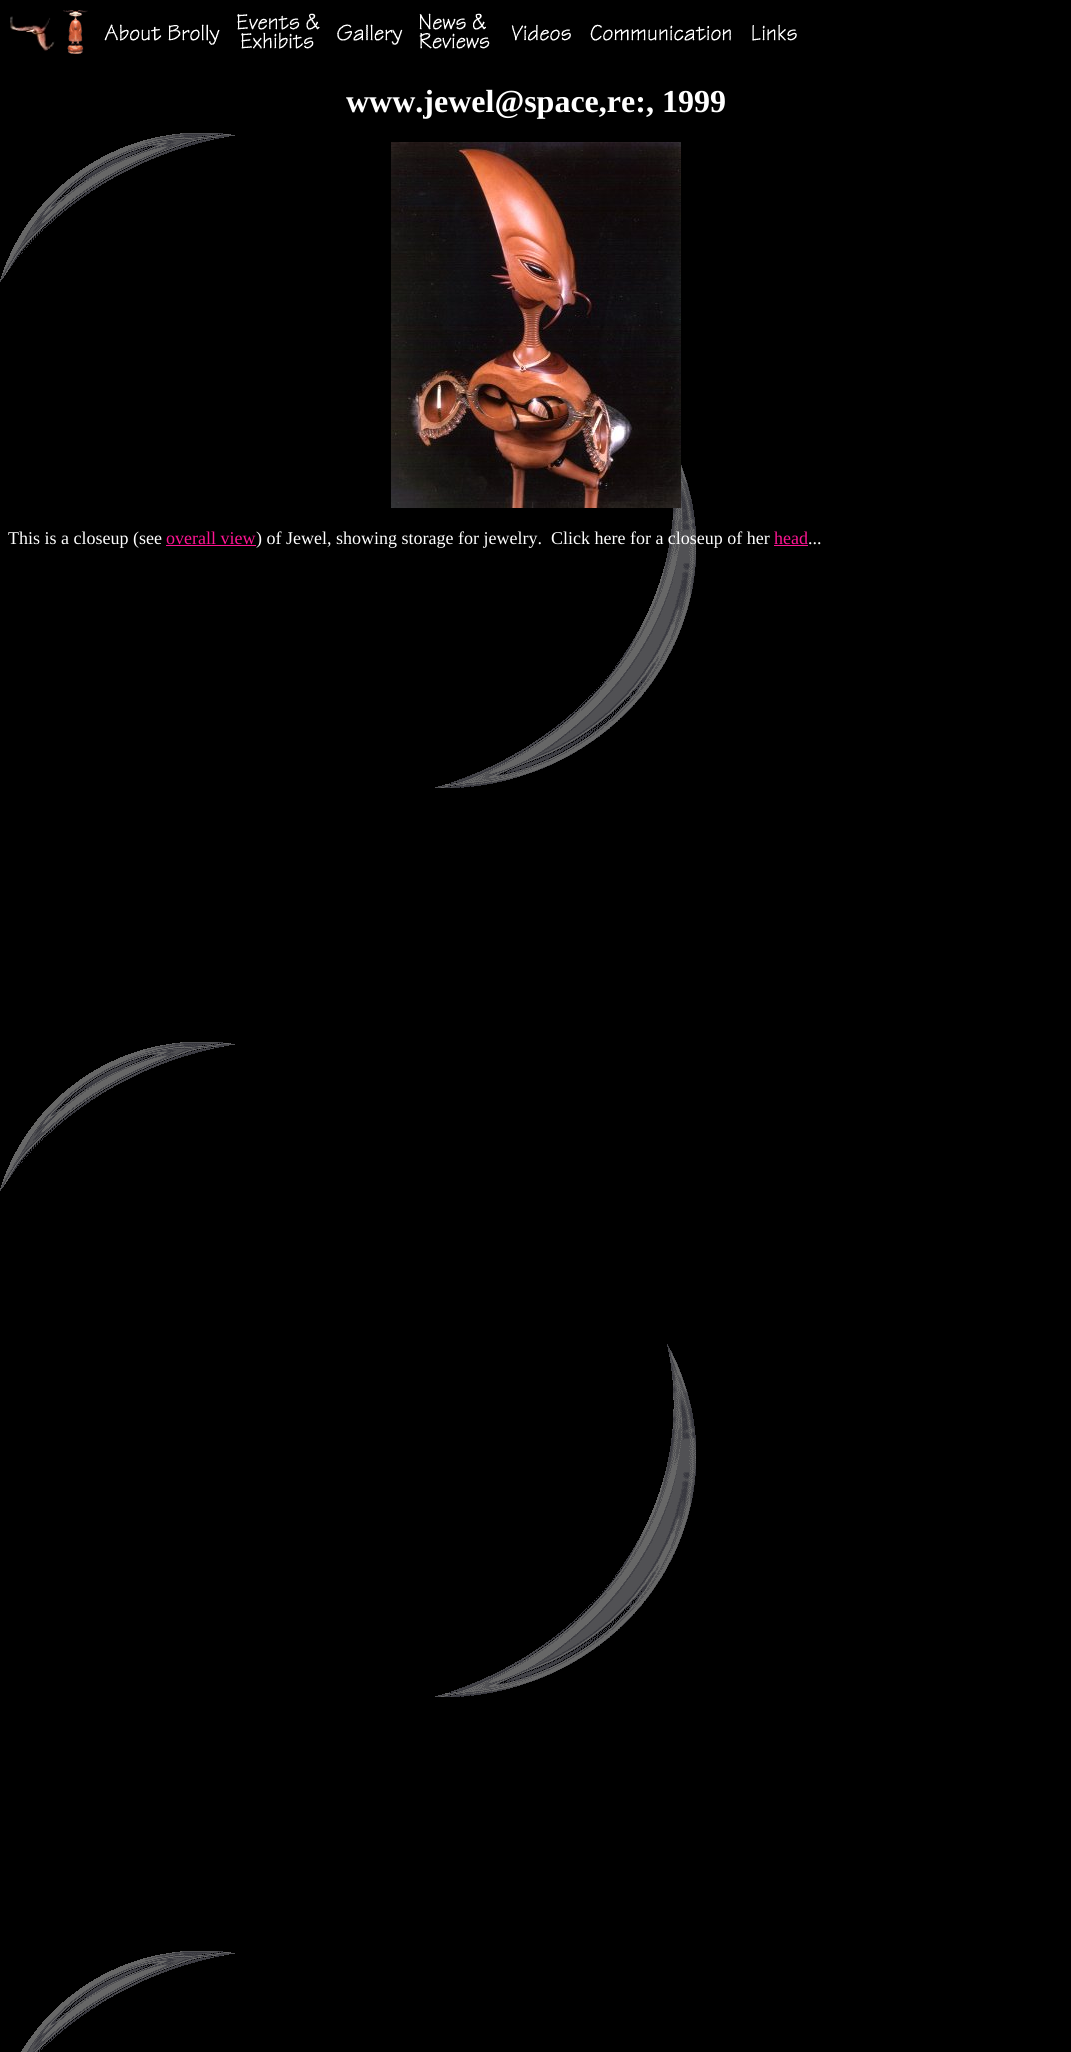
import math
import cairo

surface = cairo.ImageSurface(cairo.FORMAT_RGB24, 1071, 2052)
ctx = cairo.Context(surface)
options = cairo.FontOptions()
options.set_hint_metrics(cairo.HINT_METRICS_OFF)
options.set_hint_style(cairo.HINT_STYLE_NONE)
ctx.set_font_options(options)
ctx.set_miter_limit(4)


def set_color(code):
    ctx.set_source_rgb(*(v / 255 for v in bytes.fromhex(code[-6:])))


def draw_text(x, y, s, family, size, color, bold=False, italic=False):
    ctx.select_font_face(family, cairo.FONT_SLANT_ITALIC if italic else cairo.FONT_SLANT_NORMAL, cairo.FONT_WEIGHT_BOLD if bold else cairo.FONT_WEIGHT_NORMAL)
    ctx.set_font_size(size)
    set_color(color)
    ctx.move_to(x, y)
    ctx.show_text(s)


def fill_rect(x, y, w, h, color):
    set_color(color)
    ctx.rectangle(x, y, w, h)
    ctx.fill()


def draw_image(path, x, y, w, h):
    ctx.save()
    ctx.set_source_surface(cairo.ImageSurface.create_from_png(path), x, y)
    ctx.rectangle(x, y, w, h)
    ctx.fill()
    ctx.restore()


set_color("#000000")
ctx.paint()
draw_image("assets/img1.png", 0, 133, 696, 1919)
draw_image("assets/img2.png", 10, 16, 45, 35)
draw_image("assets/img3.png", 63, 10, 25, 44)
draw_image("assets/img4.png", 104, 24, 116, 21)
draw_image("assets/img5.png", 237, 13, 83, 36)
draw_image("assets/img6.png", 337, 24, 66, 21)
draw_image("assets/img7.png", 419, 13, 71, 36)
draw_image("assets/img8.png", 511, 24, 60, 17)
draw_image("assets/img9.png", 590, 24, 141, 17)
draw_image("assets/img10.png", 752, 24, 45, 17)
draw_text(346, 112, "www.jewel@space,re:, 1999", "Liberation Serif", 32, "#ffffff", bold=True)
draw_image("assets/img11.png", 391, 142, 290, 366)
draw_text(8, 544, "This is a closeup (see", "Liberation Serif", 18, "#ffffff")
draw_text(166, 544, "overall view", "Liberation Serif", 18, "#ff1493")
draw_text(256, 544, ") of Jewel, showing storage for jewelry.  Click here for a closeup of her", "Liberation Serif", 18, "#ffffff")
fill_rect(166, 545, 90, 1, "#ff1493")
draw_text(774, 544, "head", "Liberation Serif", 18, "#ff1493")
draw_text(808, 544, "...", "Liberation Serif", 18, "#ffffff")
fill_rect(774, 545, 34, 1, "#ff1493")
surface.write_to_png("output.png")
